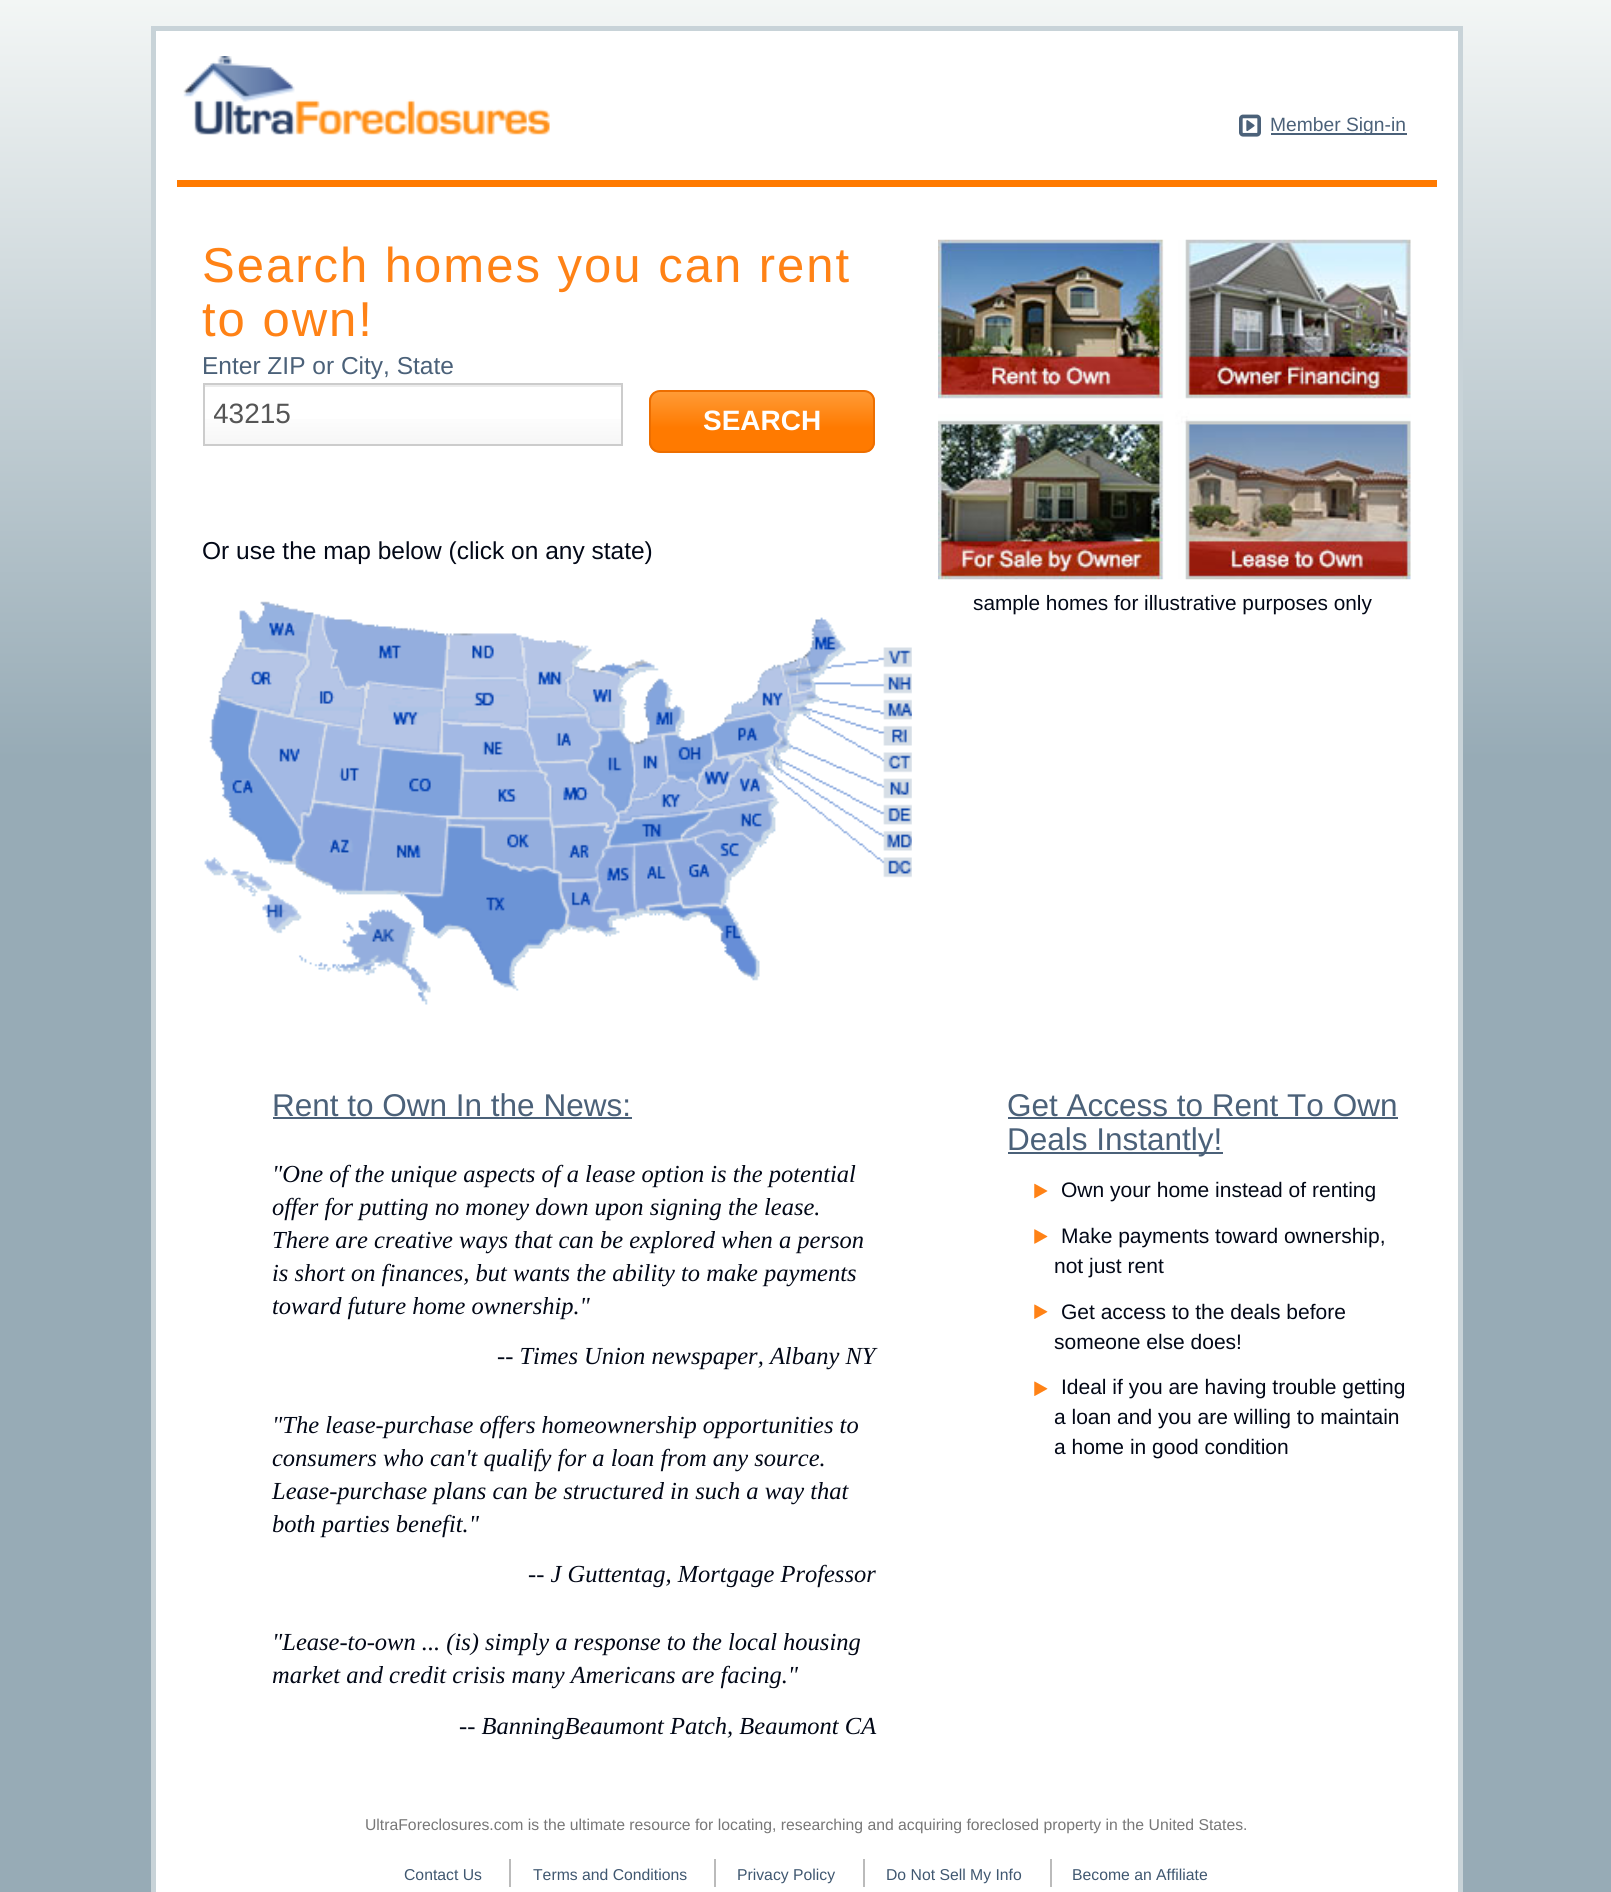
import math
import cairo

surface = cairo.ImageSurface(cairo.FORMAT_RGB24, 1611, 1892)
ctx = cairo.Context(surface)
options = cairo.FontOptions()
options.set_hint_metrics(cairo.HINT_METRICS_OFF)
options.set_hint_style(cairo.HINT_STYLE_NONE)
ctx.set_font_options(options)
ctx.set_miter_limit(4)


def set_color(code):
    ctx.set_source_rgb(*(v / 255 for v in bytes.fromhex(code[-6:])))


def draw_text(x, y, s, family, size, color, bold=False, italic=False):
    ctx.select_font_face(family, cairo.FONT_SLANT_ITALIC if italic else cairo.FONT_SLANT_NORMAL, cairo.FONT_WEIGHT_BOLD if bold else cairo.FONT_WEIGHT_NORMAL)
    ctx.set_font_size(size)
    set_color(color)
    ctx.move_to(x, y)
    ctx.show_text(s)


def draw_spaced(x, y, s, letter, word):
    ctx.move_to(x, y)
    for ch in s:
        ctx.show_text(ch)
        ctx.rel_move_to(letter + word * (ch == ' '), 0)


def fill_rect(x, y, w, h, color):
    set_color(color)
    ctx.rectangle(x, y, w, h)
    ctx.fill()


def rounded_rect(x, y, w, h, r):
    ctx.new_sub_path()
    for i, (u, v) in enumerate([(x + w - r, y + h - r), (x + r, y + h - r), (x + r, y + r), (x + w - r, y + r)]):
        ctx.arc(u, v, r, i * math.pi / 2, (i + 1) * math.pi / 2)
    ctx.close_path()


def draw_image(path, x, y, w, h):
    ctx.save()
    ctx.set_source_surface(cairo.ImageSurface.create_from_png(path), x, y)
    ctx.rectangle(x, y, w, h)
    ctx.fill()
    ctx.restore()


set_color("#ffffff")
ctx.paint()
gradient = cairo.LinearGradient(806, 0, 806, 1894)
gradient.add_color_stop_rgba(0, 0.953, 0.965, 0.961, 1)
gradient.add_color_stop_rgba(0.4, 0.592, 0.671, 0.714, 1)
ctx.set_source(gradient)
ctx.rectangle(0, 0, 1611, 1892)
ctx.fill()
fill_rect(151, 26, 1312, 5, "#c8d3d8")
fill_rect(1458, 26, 5, 161, "#c8d3d8")
fill_rect(151, 26, 5, 161, "#c8d3d8")
fill_rect(156, 31, 1302, 1861, "#ffffff")
draw_image("assets/img1.png", 183, 56, 367, 79)
draw_image("assets/img2.png", 1239, 114, 22, 23)
fill_rect(1271, 133, 136, 2, "#4b6179")
draw_text(1270, 131, "Member Sign-in", "Liberation Sans", 19.25, "#4b6179")
fill_rect(177, 180, 1260, 7, "#ff7a00")
fill_rect(1458, 187, 5, 1705, "#c8d3d8")
fill_rect(151, 187, 5, 1705, "#c8d3d8")
ctx.set_font_size(49)
set_color("#ff8216")
draw_spaced(202, 282, "Search homes you can rent", 2, 0)
draw_spaced(202, 336, "to own!", 2, 0)
draw_text(202, 374, "Enter ZIP or City, State", "Liberation Sans", 24.5, "#4b6179")
gradient = cairo.LinearGradient(413, 385, 413, 445)
gradient.add_color_stop_rgba(0.4, 1, 1, 1, 1)
gradient.add_color_stop_rgba(1, 0.965, 0.965, 0.965, 1)
ctx.set_source(gradient)
ctx.rectangle(205, 419, 416, 25)
ctx.fill()
fill_rect(205, 385, 416, 2, "#ececec")
ctx.rectangle(204, 384, 418, 61)
set_color("#cccccc")
ctx.stroke()
ctx.save()
ctx.rectangle(214, 399, 399, 32)
ctx.clip()
draw_text(213, 423, "43215", "Liberation Sans", 28, "#555555")
ctx.restore()
ctx.save()
rounded_rect(649, 390, 226, 63, 11)
ctx.clip()
gradient = cairo.LinearGradient(762, 392, 762, 452)
gradient.add_color_stop_rgba(0, 1, 0.608, 0.212, 1)
gradient.add_color_stop_rgba(0.6, 1, 0.478, 0, 1)
ctx.set_source(gradient)
ctx.rectangle(649, 392, 226, 60)
ctx.fill()
ctx.restore()
rounded_rect(650, 391, 224, 61, 10)
set_color("#ed6e00")
ctx.stroke()
draw_text(703, 430, "SEARCH", "Liberation Sans", 28, "#ffffff", bold=True)
draw_text(202, 559, "Or use the map below (click on any state)", "Liberation Sans", 24.5, "#020817")
draw_image("assets/img3.png", 204, 601, 708, 404)
draw_image("assets/img4.png", 938, 239, 473, 341)
draw_text(973, 610, "sample homes for illustrative purposes only", "Liberation Sans", 20.8, "#020817")
draw_text(272, 1116, "Rent to Own In the News:", "Liberation Sans", 31.5, "#4b6179")
fill_rect(273, 1117, 359, 2, "#4b6179")
draw_text(272, 1182, "\"One of the unique aspects of a lease option is the potential", "Liberation Serif", 24.5, "#020817", italic=True)
draw_text(272, 1215, "offer for putting no money down upon signing the lease.", "Liberation Serif", 24.5, "#020817", italic=True)
draw_text(272, 1248, "There are creative ways that can be explored when a person", "Liberation Serif", 24.5, "#020817", italic=True)
draw_text(272, 1281, "is short on finances, but wants the ability to make payments", "Liberation Serif", 24.5, "#020817", italic=True)
draw_text(272, 1314, "toward future home ownership.\"", "Liberation Serif", 24.5, "#020817", italic=True)
draw_text(497, 1364, "-- Times Union newspaper, Albany NY", "Liberation Serif", 24.5, "#020817", italic=True)
draw_text(272, 1433, "\"The lease-purchase offers homeownership opportunities to", "Liberation Serif", 24.5, "#020817", italic=True)
draw_text(272, 1466, "consumers who can't qualify for a loan from any source.", "Liberation Serif", 24.5, "#020817", italic=True)
draw_text(272, 1499, "Lease-purchase plans can be structured in such a way that", "Liberation Serif", 24.5, "#020817", italic=True)
draw_text(272, 1532, "both parties benefit.\"", "Liberation Serif", 24.5, "#020817", italic=True)
draw_text(528, 1582, "-- J Guttentag, Mortgage Professor", "Liberation Serif", 24.5, "#020817", italic=True)
draw_text(272, 1650, "\"Lease-to-own ... (is) simply a response to the local housing", "Liberation Serif", 24.5, "#020817", italic=True)
draw_text(272, 1683, "market and credit crisis many Americans are facing.\"", "Liberation Serif", 24.5, "#020817", italic=True)
draw_text(459, 1734, "-- BanningBeaumont Patch, Beaumont CA", "Liberation Serif", 24.5, "#020817", italic=True)
draw_text(1007, 1116, "Get Access to Rent To Own", "Liberation Sans", 31.5, "#4b6179")
fill_rect(1008, 1117, 390, 2, "#4b6179")
fill_rect(1008, 1152, 215, 2, "#4b6179")
draw_text(1007, 1150, "Deals Instantly!", "Liberation Sans", 31.5, "#4b6179")
draw_image("assets/img5.png", 1034, 1183, 14, 16)
draw_text(1061, 1197, "Own your home instead of renting", "Liberation Sans", 21, "#020817")
draw_image("assets/img6.png", 1034, 1229, 14, 15)
draw_text(1061, 1243, "Make payments toward ownership,", "Liberation Sans", 21, "#020817")
draw_text(1054, 1273, "not just rent", "Liberation Sans", 21, "#020817")
draw_image("assets/img7.png", 1034, 1304, 14, 15)
draw_text(1061, 1319, "Get access to the deals before", "Liberation Sans", 21, "#020817")
draw_text(1054, 1349, "someone else does!", "Liberation Sans", 21, "#020817")
draw_image("assets/img7.png", 1034, 1381, 14, 15)
draw_text(1061, 1394, "Ideal if you are having trouble getting", "Liberation Sans", 21, "#020817")
draw_text(1054, 1424, "a loan and you are willing to maintain", "Liberation Sans", 21, "#020817")
draw_text(1054, 1454, "a home in good condition", "Liberation Sans", 21, "#020817")
draw_text(365, 1830, "UltraForeclosures.com is the ultimate resource for locating, researching and acquiring foreclosed property in the United States.", "Liberation Sans", 15.75, "#777777")
draw_text(404, 1880, "Contact Us", "Liberation Sans", 15.75, "#3f5770")
fill_rect(509, 1859, 2, 28, "#bbbbbb")
draw_text(533, 1880, "Terms and Conditions", "Liberation Sans", 15.75, "#3f5770")
fill_rect(714, 1859, 2, 28, "#bbbbbb")
draw_text(737, 1880, "Privacy Policy", "Liberation Sans", 15.75, "#3f5770")
fill_rect(863, 1859, 2, 28, "#bbbbbb")
draw_text(886, 1880, "Do Not Sell My Info", "Liberation Sans", 15.75, "#3f5770")
fill_rect(1050, 1859, 2, 28, "#bbbbbb")
draw_text(1072, 1880, "Become an Affiliate", "Liberation Sans", 15.75, "#3f5770")
surface.write_to_png("output.png")
